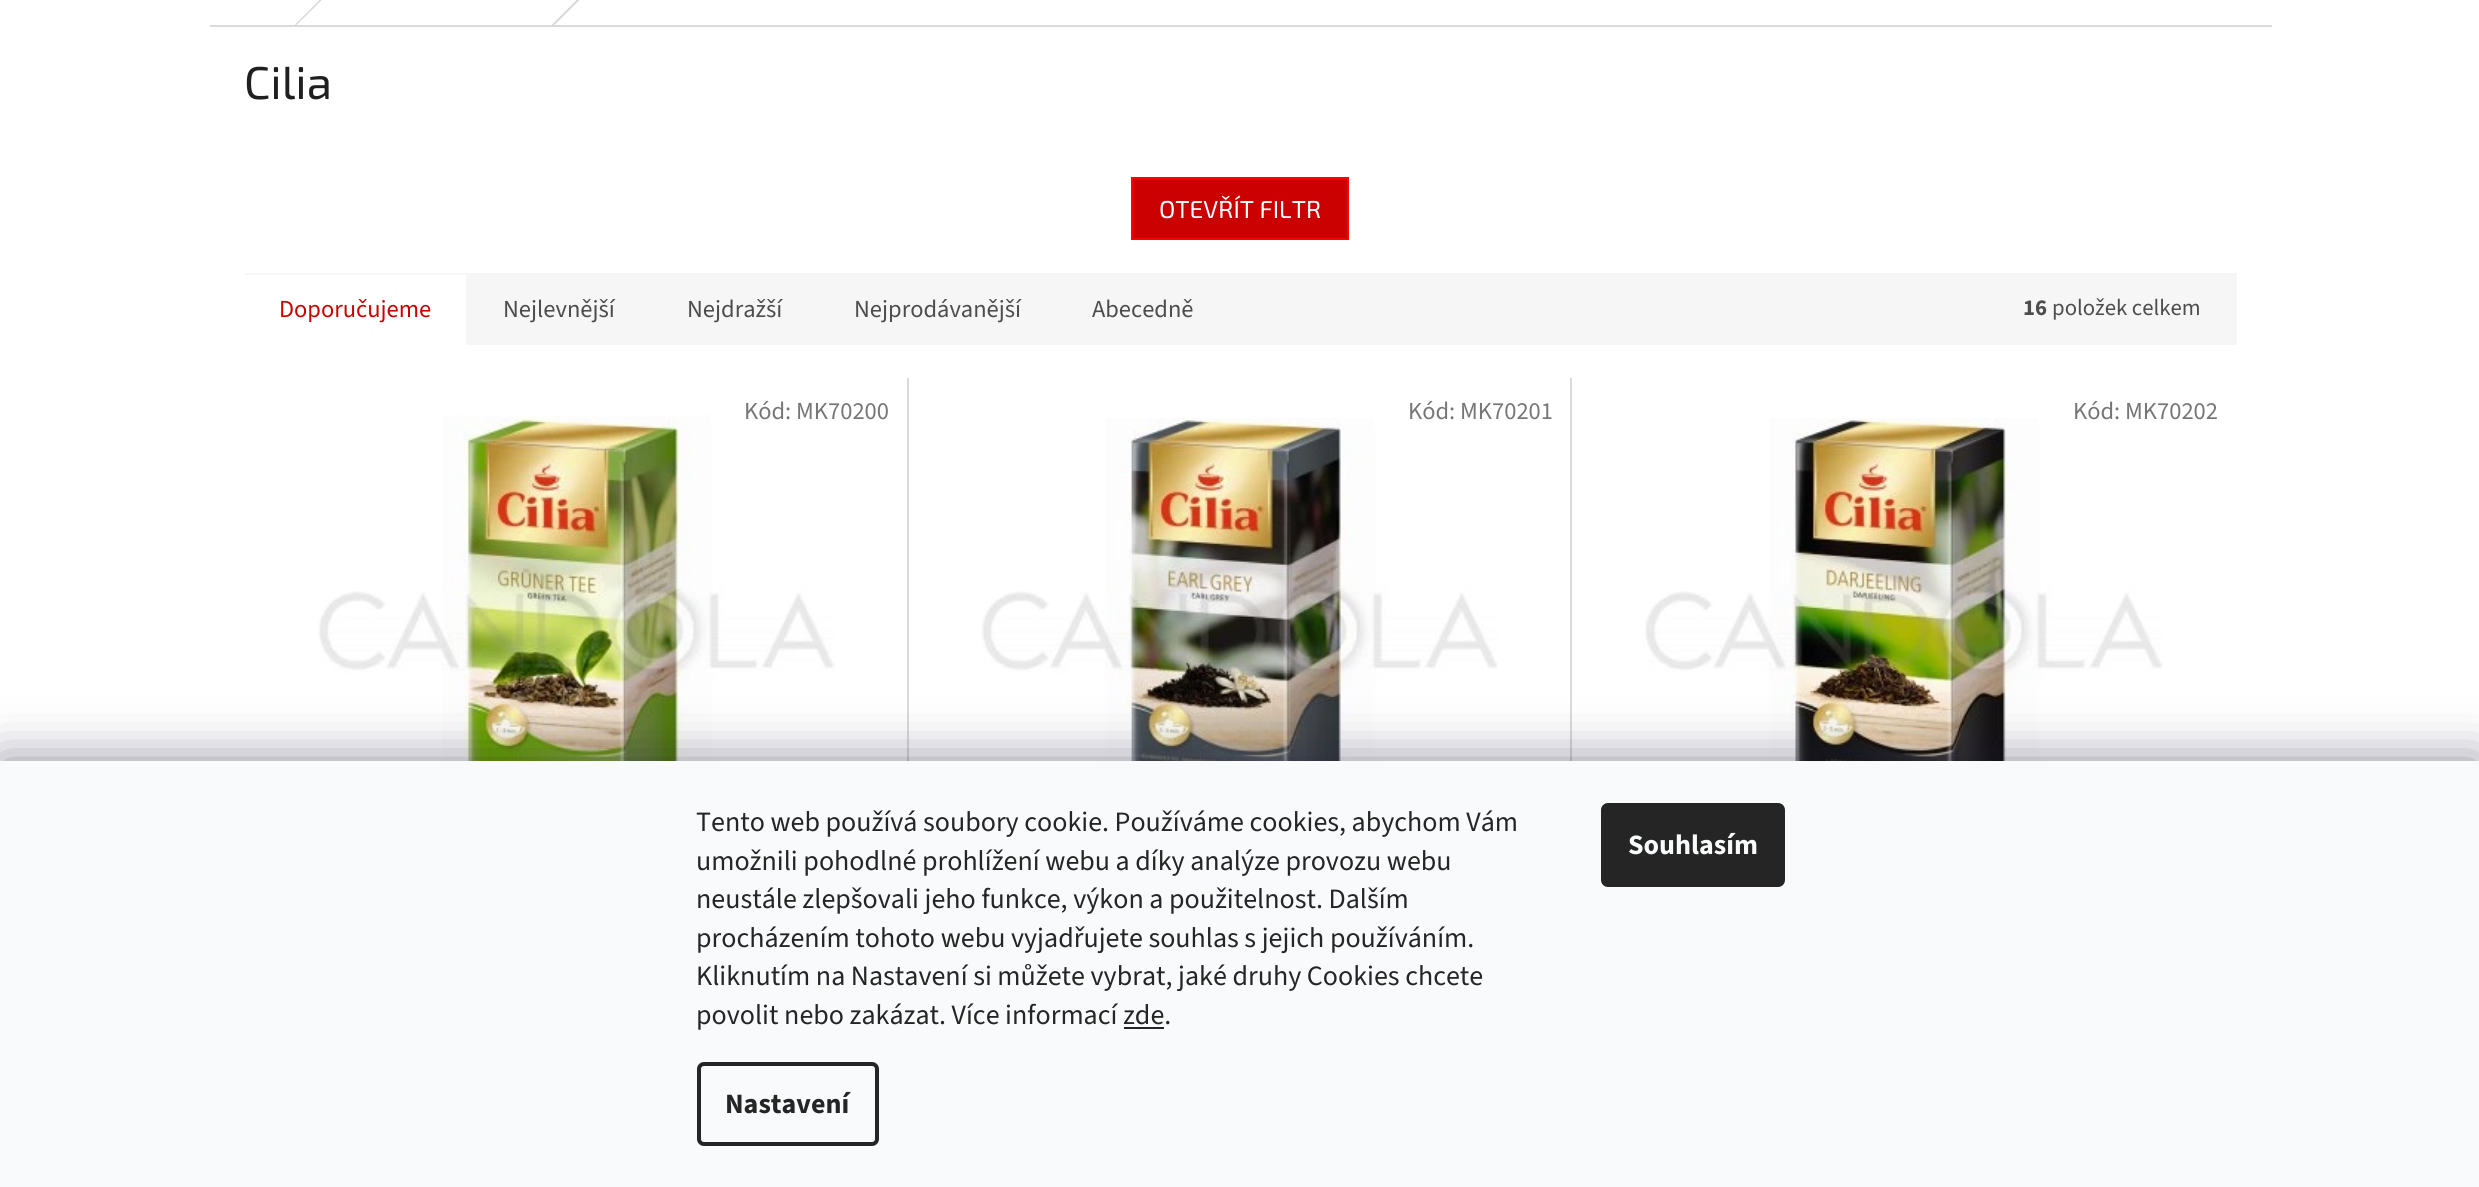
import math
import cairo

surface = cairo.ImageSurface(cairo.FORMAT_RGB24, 2479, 1187)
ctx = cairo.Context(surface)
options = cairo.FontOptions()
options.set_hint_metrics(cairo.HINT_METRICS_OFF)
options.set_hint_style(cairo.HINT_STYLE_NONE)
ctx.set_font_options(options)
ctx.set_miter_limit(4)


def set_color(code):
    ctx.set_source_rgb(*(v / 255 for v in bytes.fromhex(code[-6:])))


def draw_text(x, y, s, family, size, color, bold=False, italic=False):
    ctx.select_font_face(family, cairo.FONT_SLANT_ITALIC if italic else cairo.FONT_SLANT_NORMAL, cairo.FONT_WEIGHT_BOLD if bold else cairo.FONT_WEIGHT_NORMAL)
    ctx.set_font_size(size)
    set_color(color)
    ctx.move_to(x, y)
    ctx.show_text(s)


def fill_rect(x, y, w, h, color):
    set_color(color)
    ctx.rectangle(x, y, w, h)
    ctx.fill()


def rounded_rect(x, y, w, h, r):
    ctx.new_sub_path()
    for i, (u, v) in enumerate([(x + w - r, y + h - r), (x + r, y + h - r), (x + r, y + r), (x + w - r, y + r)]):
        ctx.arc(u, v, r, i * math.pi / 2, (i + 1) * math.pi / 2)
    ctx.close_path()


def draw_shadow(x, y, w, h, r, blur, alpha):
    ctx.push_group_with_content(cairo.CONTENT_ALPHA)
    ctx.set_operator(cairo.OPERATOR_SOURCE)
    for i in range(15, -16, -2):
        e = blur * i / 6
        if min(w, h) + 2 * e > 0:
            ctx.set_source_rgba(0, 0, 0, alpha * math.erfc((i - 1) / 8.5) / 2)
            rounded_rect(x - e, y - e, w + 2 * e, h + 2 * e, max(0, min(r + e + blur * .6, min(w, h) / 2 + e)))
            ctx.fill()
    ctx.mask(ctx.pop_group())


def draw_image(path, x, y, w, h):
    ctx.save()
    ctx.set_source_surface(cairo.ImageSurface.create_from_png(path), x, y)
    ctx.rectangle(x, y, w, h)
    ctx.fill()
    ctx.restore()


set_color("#ffffff")
ctx.paint()
fill_rect(210, 25, 2062, 2, "#dadada")
ctx.new_path()
ctx.move_to(330.5, -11)
ctx.line_to(331.5, -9.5)
ctx.line_to(296, 25.5)
ctx.line_to(295, 24.5)
ctx.close_path()
ctx.fill()
ctx.new_path()
ctx.move_to(587.5, -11)
ctx.line_to(589, -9.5)
ctx.line_to(552.5, 27)
ctx.line_to(551, 25.5)
ctx.close_path()
ctx.fill()
draw_text(244, 99, "Cilia", "Exo 2", 46, "#1f1f1f")
set_color("#cb0000")
ctx.rectangle(1132, 178, 216, 61)
ctx.fill_preserve()
set_color("#fe0000")
ctx.stroke()
draw_text(1159, 218, "OTEVŘÍT FILTR", "Exo 2", 24.5, "#ffffff")
fill_rect(245, 273, 1992, 72, "#f6f6f6")
fill_rect(245, 275, 221, 70, "#ffffff")
draw_text(279, 317, "Doporučujeme", "Source Sans 3", 24.5, "#cb0000")
draw_text(503, 317, "Nejlevnější", "Source Sans 3", 24.5, "#4d4d4d")
draw_text(687, 317, "Nejdražší", "Source Sans 3", 24.5, "#4d4d4d")
draw_text(854, 317, "Nejprodávanější", "Source Sans 3", 24.5, "#4d4d4d")
draw_text(1092, 317, "Abecedně", "Source Sans 3", 24.5, "#4d4d4d")
draw_text(2023, 315, "16", "Source Sans 3", 22.75, "#4d4d4d", bold=True)
draw_text(2052, 315, "položek celkem", "Source Sans 3", 22.75, "#4d4d4d")
fill_rect(907, 378, 2, 383, "#dadada")
draw_image("assets/img1.png", 318, 415, 517, 346)
draw_text(744, 419, "Kód: MK70200", "Source Sans 3", 24.5, "#767676")
fill_rect(1570, 378, 2, 383, "#dadada")
draw_image("assets/img2.png", 981, 418, 517, 343)
draw_text(1408, 419, "Kód: MK70201", "Source Sans 3", 24.5, "#767676")
draw_image("assets/img3.png", 1643, 418, 520, 343)
draw_text(2073, 419, "Kód: MK70202", "Source Sans 3", 24.5, "#767676")
set_color("#1b1939")
draw_shadow(0, 761, 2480, 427, 0, 26, 0.5)
fill_rect(0, 761, 2479, 426, "#f8fafb")
draw_text(696, 831, "Tento web používá soubory cookie. Používáme cookies, abychom Vám", "Source Sans 3", 28, "#252525")
draw_text(696, 870, "umožnili pohodlné prohlížení webu a díky analýze provozu webu", "Source Sans 3", 28, "#252525")
draw_text(696, 908, "neustále zlepšovali jeho funkce, výkon a použitelnost. Dalším", "Source Sans 3", 28, "#252525")
draw_text(696, 947, "procházením tohoto webu vyjadřujete souhlas s jejich používáním.", "Source Sans 3", 28, "#252525")
draw_text(696, 985, "Kliknutím na Nastavení si můžete vybrat, jaké druhy Cookies chcete", "Source Sans 3", 28, "#252525")
draw_text(696, 1024, "povolit nebo zakázat. Více informací zde.", "Source Sans 3", 28, "#252525")
fill_rect(1124, 1027, 40, 2, "#252525")
rounded_rect(699, 1064, 178, 80, 5)
ctx.set_line_width(4)
ctx.stroke()
draw_text(725, 1113, "Nastavení", "Source Sans 3", 28, "#252525", bold=True)
rounded_rect(1601, 803, 184, 84, 7)
ctx.fill()
draw_text(1628, 854, "Souhlasím", "Source Sans 3", 28, "#f8fafb", bold=True)
surface.write_to_png("output.png")
